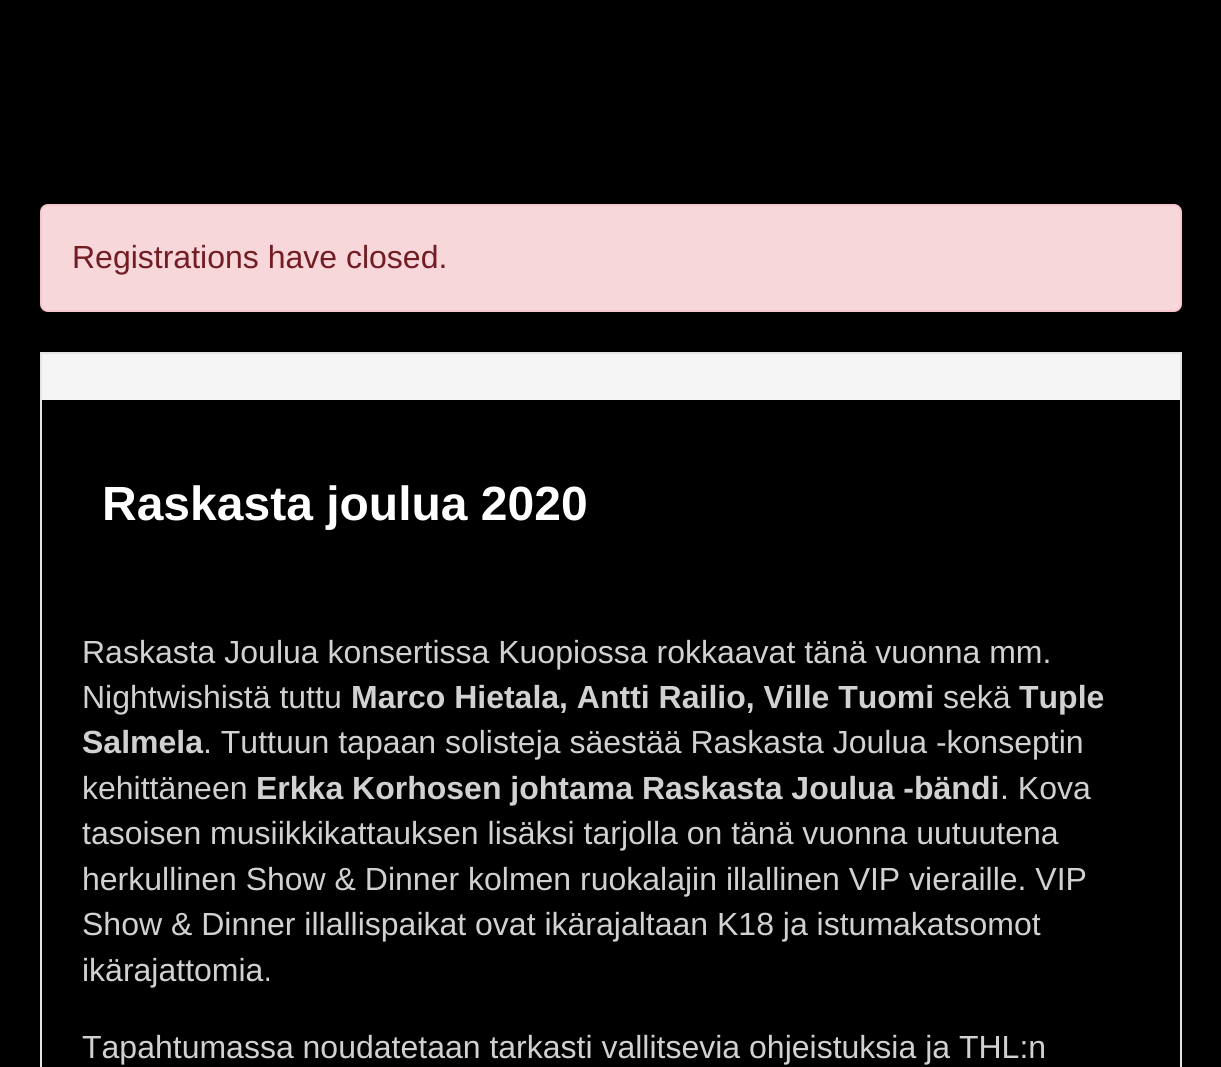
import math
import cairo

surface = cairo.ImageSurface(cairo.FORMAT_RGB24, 1221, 1067)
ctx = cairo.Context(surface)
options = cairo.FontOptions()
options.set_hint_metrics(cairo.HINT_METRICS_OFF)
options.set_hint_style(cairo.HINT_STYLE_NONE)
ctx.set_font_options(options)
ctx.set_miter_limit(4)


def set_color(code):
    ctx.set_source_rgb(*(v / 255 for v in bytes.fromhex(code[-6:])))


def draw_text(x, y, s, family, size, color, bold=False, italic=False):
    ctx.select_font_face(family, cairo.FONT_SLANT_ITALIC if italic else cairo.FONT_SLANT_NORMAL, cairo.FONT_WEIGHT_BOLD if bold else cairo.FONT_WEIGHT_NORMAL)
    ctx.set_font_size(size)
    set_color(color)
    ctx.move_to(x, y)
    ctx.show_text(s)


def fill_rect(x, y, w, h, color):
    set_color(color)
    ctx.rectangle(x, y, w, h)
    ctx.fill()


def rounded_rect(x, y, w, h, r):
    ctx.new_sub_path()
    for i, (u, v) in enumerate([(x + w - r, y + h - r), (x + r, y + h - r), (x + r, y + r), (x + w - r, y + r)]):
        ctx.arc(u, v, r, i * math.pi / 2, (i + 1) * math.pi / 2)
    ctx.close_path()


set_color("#000000")
ctx.paint()
set_color("#f8d7da")
rounded_rect(41, 205, 1140, 106, 7)
ctx.fill_preserve()
set_color("#f5c6cb")
ctx.stroke()
draw_text(72, 268, "Registrations have closed.", "Liberation Sans", 32, "#721c24")
ctx.rectangle(41, 353, 1140, 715)
set_color("#e4e4e4")
ctx.stroke()
fill_rect(42, 354, 1138, 46, "#f5f5f5")
draw_text(102, 520, "Raskasta joulua 2020", "Liberation Sans", 48, "#ffffff", bold=True)
draw_text(82, 663, "Raskasta Joulua konsertissa Kuopiossa rokkaavat tänä vuonna mm.", "Liberation Sans", 32, "#d1d1d1")
draw_text(82, 708, "Nightwishistä tuttu", "Liberation Sans", 32, "#d1d1d1")
draw_text(351, 708, "Marco Hietala, Antti Railio, Ville Tuomi", "Liberation Sans", 32, "#d1d1d1", bold=True)
draw_text(943, 708, "sekä", "Liberation Sans", 32, "#d1d1d1")
draw_text(1019, 708, "Tuple", "Liberation Sans", 32, "#d1d1d1", bold=True)
draw_text(82, 753, "Salmela", "Liberation Sans", 32, "#d1d1d1", bold=True)
draw_text(203, 753, ". Tuttuun tapaan solisteja säestää Raskasta Joulua -konseptin", "Liberation Sans", 32, "#d1d1d1")
draw_text(82, 799, "kehittäneen", "Liberation Sans", 32, "#d1d1d1")
draw_text(256, 799, "Erkka Korhosen johtama Raskasta Joulua -bändi", "Liberation Sans", 32, "#d1d1d1", bold=True)
draw_text(1000, 799, ". Kova", "Liberation Sans", 32, "#d1d1d1")
draw_text(82, 844, "tasoisen musiikkikattauksen lisäksi tarjolla on tänä vuonna uutuutena", "Liberation Sans", 32, "#d1d1d1")
draw_text(82, 890, "herkullinen Show & Dinner kolmen ruokalajin illallinen VIP vieraille. VIP", "Liberation Sans", 32, "#d1d1d1")
draw_text(82, 935, "Show & Dinner illallispaikat ovat ikärajaltaan K18 ja istumakatsomot", "Liberation Sans", 32, "#d1d1d1")
draw_text(82, 981, "ikärajattomia.", "Liberation Sans", 32, "#d1d1d1")
draw_text(82, 1058, "Tapahtumassa noudatetaan tarkasti vallitsevia ohjeistuksia ja THL:n", "Liberation Sans", 32, "#d1d1d1")
surface.write_to_png("output.png")
